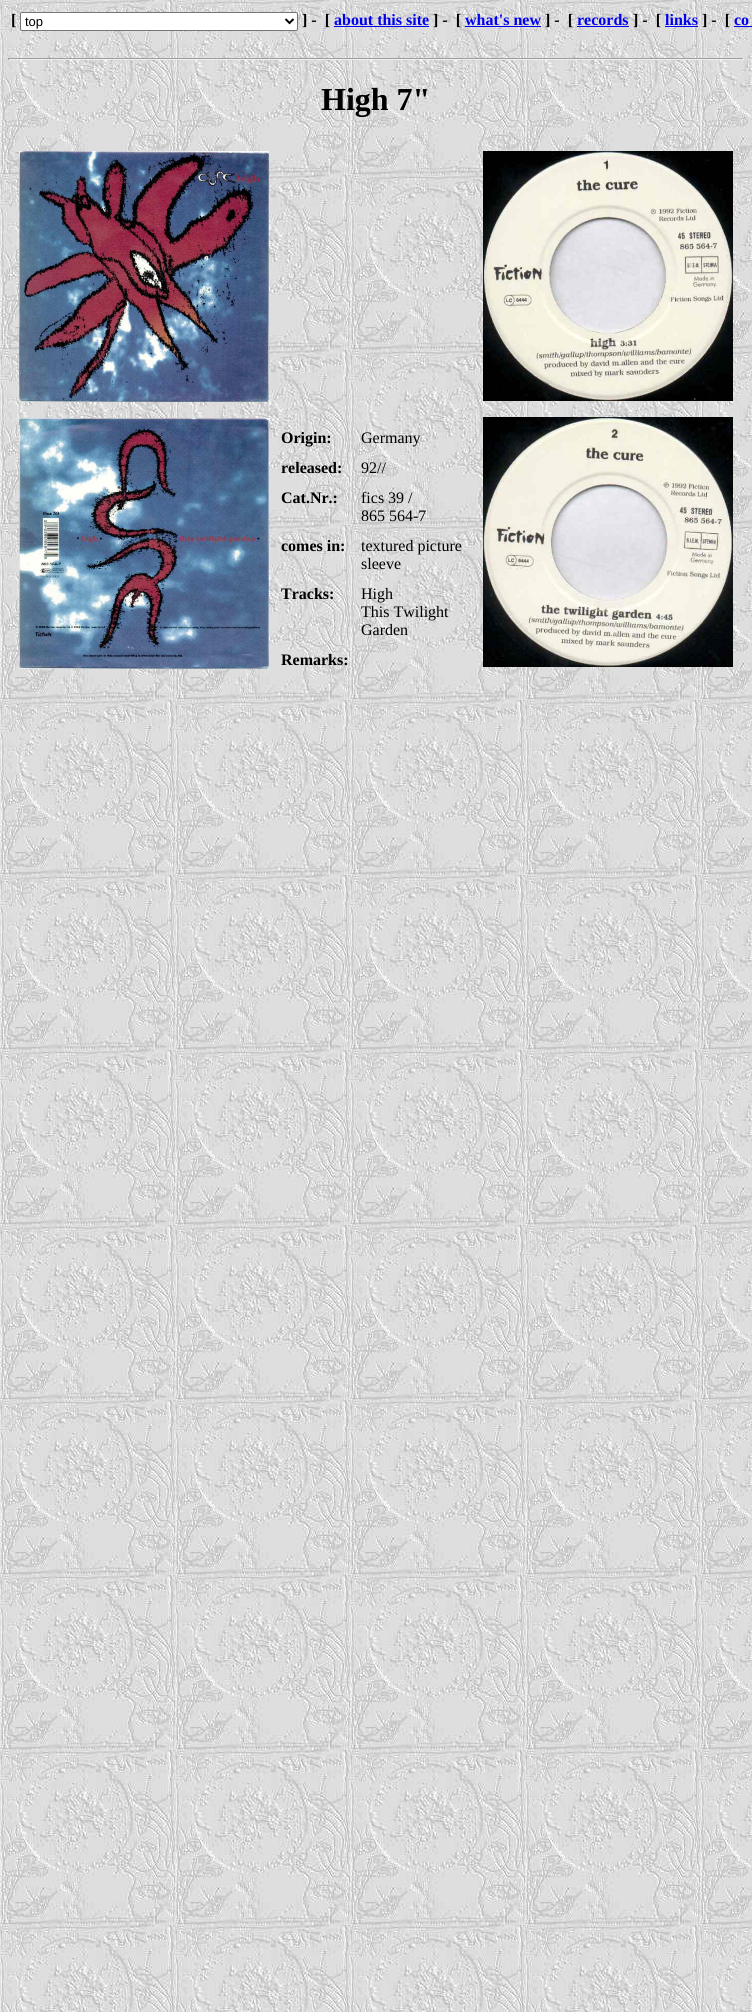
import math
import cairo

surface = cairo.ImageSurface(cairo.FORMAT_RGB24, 752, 2012)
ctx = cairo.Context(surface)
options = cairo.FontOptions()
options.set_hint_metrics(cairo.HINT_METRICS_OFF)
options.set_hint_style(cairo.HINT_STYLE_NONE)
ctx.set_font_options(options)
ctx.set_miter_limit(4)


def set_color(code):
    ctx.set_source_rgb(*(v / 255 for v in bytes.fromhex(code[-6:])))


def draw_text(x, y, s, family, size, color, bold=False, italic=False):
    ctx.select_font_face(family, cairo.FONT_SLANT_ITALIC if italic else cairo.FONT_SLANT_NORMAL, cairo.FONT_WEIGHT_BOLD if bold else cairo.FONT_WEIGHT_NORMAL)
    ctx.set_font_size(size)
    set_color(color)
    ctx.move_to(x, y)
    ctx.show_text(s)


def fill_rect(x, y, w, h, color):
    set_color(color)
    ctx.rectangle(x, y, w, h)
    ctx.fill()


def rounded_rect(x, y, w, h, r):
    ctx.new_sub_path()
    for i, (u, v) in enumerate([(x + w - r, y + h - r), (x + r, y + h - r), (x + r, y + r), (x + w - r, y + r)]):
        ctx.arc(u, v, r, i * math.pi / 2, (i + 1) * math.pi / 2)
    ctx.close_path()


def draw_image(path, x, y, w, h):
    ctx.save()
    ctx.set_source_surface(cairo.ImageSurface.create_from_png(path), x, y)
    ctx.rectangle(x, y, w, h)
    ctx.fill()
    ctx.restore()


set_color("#ffffff")
ctx.paint()
draw_image("assets/img1.png", 0, 0, 752, 2012)
draw_text(11, 25, "[", "Liberation Serif", 16, "#000000", bold=True)
set_color("#ffffff")
rounded_rect(20.5, 12.5, 277, 18, 1.5)
ctx.fill_preserve()
set_color("#767676")
ctx.set_line_width(1)
ctx.stroke()
ctx.new_path()
ctx.move_to(285.5, 19)
ctx.line_to(289.5, 23)
ctx.line_to(293.5, 19)
set_color("#000000")
ctx.set_line_width(2)
ctx.stroke()
draw_text(25, 26, "top", "Liberation Sans", 13, "#000000")
draw_text(302, 25, "] -  [", "Liberation Serif", 16, "#000000", bold=True)
draw_text(334, 25, "about this site", "Liberation Serif", 16, "#0000ee", bold=True)
fill_rect(334, 26, 95, 1, "#0000ee")
draw_text(433, 25, "] -  [", "Liberation Serif", 16, "#000000", bold=True)
draw_text(465, 25, "what's new", "Liberation Serif", 16, "#0000ee", bold=True)
fill_rect(465, 26, 76, 1, "#0000ee")
draw_text(545, 25, "] -  [", "Liberation Serif", 16, "#000000", bold=True)
draw_text(577, 25, "records", "Liberation Serif", 16, "#0000ee", bold=True)
fill_rect(577, 26, 52, 1, "#0000ee")
draw_text(633, 25, "] -  [", "Liberation Serif", 16, "#000000", bold=True)
draw_text(665, 25, "links", "Liberation Serif", 16, "#0000ee", bold=True)
fill_rect(665, 26, 33, 1, "#0000ee")
draw_text(702, 25, "] -  [", "Liberation Serif", 16, "#000000", bold=True)
draw_text(734, 25, "co", "Liberation Serif", 16, "#0000ee", bold=True)
fill_rect(734, 26, 18, 1, "#0000ee")
fill_rect(8, 58, 736, 1, "#9f9f9f")
fill_rect(743, 58, 1, 2, "#eeeeee")
fill_rect(8, 59, 736, 1, "#eeeeee")
fill_rect(8, 58, 1, 2, "#9f9f9f")
draw_text(321, 110, "High 7\"", "Liberation Serif", 32, "#000000", bold=True)
draw_image("assets/img2.png", 19, 151, 250, 251)
draw_image("assets/img3.png", 19, 418, 250, 251)
draw_image("assets/img4.png", 483, 151, 250, 250)
draw_image("assets/img5.png", 483, 417, 250, 250)
draw_text(281, 443, "Origin:", "Liberation Serif", 16, "#000000", bold=True)
draw_text(361, 443, "Germany", "Liberation Serif", 16, "#000000")
draw_text(281, 473, "released:", "Liberation Serif", 16, "#000000", bold=True)
draw_text(361, 473, "92//", "Liberation Serif", 16, "#000000")
draw_text(281, 503, "Cat.Nr.:", "Liberation Serif", 16, "#000000", bold=True)
draw_text(361, 503, "fics 39 /", "Liberation Serif", 16, "#000000")
draw_text(361, 521, "865 564-7", "Liberation Serif", 16, "#000000")
draw_text(281, 551, "comes in:", "Liberation Serif", 16, "#000000", bold=True)
draw_text(361, 551, "textured picture", "Liberation Serif", 16, "#000000")
draw_text(361, 569, "sleeve", "Liberation Serif", 16, "#000000")
draw_text(281, 599, "Tracks:", "Liberation Serif", 16, "#000000", bold=True)
draw_text(361, 599, "High", "Liberation Serif", 16, "#000000")
draw_text(361, 617, "This Twilight", "Liberation Serif", 16, "#000000")
draw_text(361, 635, "Garden", "Liberation Serif", 16, "#000000")
draw_text(281, 665, "Remarks:", "Liberation Serif", 16, "#000000", bold=True)
surface.write_to_png("output.png")
